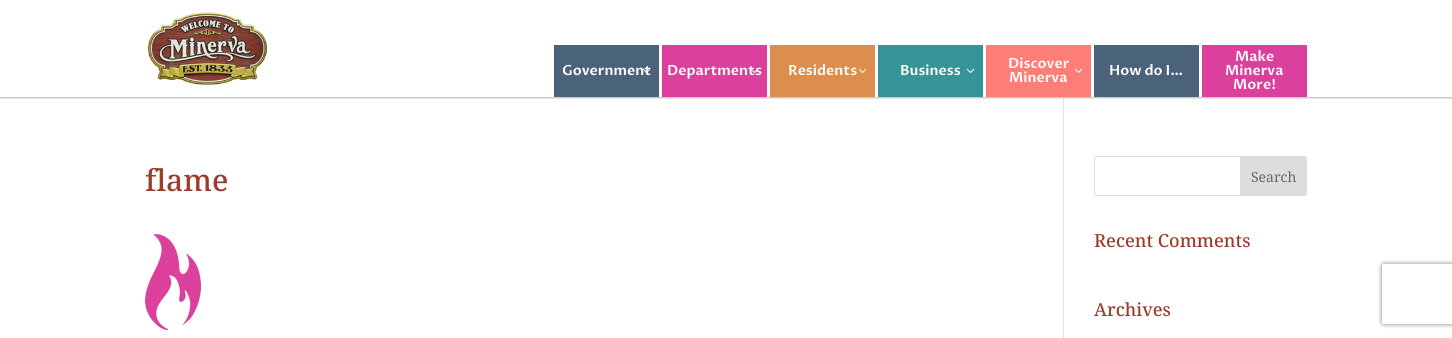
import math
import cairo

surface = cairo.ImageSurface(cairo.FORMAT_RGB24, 1452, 338)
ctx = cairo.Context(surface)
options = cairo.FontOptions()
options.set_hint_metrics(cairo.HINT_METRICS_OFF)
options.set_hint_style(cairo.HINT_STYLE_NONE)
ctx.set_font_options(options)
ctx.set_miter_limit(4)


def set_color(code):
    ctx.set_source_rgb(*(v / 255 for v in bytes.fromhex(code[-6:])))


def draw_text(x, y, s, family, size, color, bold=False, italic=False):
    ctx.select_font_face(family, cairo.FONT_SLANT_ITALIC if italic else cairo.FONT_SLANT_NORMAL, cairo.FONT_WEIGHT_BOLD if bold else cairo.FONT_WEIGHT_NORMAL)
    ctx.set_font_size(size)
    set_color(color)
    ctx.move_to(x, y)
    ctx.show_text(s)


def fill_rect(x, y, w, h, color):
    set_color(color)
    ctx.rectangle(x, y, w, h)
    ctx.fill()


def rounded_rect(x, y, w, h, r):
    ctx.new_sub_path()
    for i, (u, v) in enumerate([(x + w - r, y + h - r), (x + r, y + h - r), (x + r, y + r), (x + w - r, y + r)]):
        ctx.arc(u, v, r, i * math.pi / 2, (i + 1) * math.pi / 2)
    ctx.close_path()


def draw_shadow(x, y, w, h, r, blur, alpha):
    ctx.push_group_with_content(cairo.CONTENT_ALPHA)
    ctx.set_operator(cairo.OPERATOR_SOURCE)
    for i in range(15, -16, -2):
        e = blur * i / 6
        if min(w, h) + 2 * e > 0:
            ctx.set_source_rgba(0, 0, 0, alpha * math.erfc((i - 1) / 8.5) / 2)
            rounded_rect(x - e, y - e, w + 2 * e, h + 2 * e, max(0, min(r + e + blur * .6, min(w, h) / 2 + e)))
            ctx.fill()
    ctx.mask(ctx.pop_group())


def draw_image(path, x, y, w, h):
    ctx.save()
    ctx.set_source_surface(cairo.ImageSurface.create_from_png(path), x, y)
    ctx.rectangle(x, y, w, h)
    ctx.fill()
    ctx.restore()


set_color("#ffffff")
ctx.paint()
fill_rect(0, 98, 1452, 1, "#e6e6e6")
fill_rect(0, 97, 1452, 1, "#cccccc")
draw_image("assets/img1.png", 148, 12, 119, 73)
fill_rect(554, 45, 105, 52, "#4a637b")
draw_text(562, 75, "Government", "Proza Libre SemiBold", 14, "#ffffff")
draw_image("assets/img2.png", 643, 68, 8, 5)
fill_rect(662, 45, 105, 52, "#dc409d")
draw_text(667, 75, "Departments", "Proza Libre SemiBold", 14, "#ffffff")
draw_image("assets/img3.png", 752, 69, 7, 4)
fill_rect(770, 45, 105, 52, "#de8e4c")
draw_text(788, 75, "Residents", "Proza Libre SemiBold", 14, "#ffffff")
draw_image("assets/img4.png", 858, 68, 9, 5)
fill_rect(878, 45, 105, 52, "#369398")
draw_text(900, 75, "Business", "Proza Libre SemiBold", 14, "#ffffff")
draw_image("assets/img5.png", 966, 68, 9, 5)
fill_rect(986, 45, 105, 52, "#fc7e77")
draw_text(1008, 68, "Discover", "Proza Libre SemiBold", 14, "#ffffff")
draw_image("assets/img6.png", 1074, 68, 9, 5)
draw_text(1009, 82, "Minerva", "Proza Libre SemiBold", 14, "#ffffff")
fill_rect(1094, 45, 105, 52, "#4a637b")
draw_text(1109, 75, "How do I…", "Proza Libre SemiBold", 14, "#ffffff")
fill_rect(1202, 45, 105, 52, "#dc409d")
draw_text(1235, 61, "Make", "Proza Libre SemiBold", 14, "#ffffff")
draw_text(1225, 75, "Minerva", "Proza Libre SemiBold", 14, "#ffffff")
draw_text(1233, 89, "More!", "Proza Libre SemiBold", 14, "#ffffff")
fill_rect(1063, 98, 1, 240, "#e2e2e2")
fill_rect(1063, 98, 1, 1, "#cbcbcb")
draw_text(145, 191, "flame", "Noto Serif Medium", 30, "#9b3c2d")
draw_image("assets/img7.png", 145, 234, 56, 96)
rounded_rect(1094.5, 156.5, 212, 39, 2.5)
set_color("#dddddd")
ctx.set_line_width(1)
ctx.stroke()
ctx.new_path()
ctx.move_to(1240.5, 156.5)
ctx.line_to(1304, 156.5)
ctx.curve_to(1305.5, 156.5, 1306.5, 157.5, 1306.5, 159)
ctx.line_to(1306.5, 193)
ctx.curve_to(1306.5, 194.5, 1305.5, 195.5, 1304, 195.5)
ctx.line_to(1240.5, 195.5)
ctx.close_path()
ctx.fill_preserve()
ctx.stroke()
draw_text(1251, 182, "Search", "Noto Serif", 14, "#666666")
draw_text(1094, 247, "Recent Comments", "Noto Serif Medium", 18, "#9b3c2d")
draw_text(1094, 316, "Archives", "Noto Serif Medium", 18, "#9b3c2d")
ctx.save()
ctx.set_fill_rule(cairo.FILL_RULE_EVEN_ODD)
ctx.new_path()
ctx.move_to(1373, 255)
ctx.line_to(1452, 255)
ctx.line_to(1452, 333)
ctx.line_to(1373, 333)
ctx.close_path()
ctx.move_to(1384, 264)
ctx.line_to(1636, 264)
ctx.curve_to(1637, 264, 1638, 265, 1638, 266)
ctx.line_to(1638, 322)
ctx.curve_to(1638, 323, 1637, 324, 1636, 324)
ctx.line_to(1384, 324)
ctx.curve_to(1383, 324, 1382, 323, 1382, 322)
ctx.line_to(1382, 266)
ctx.curve_to(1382, 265, 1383, 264, 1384, 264)
ctx.close_path()
ctx.clip()
set_color("#808080")
draw_shadow(1382, 264, 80, 60, 2, 2.5, 1)
ctx.restore()
surface.write_to_png("output.png")
